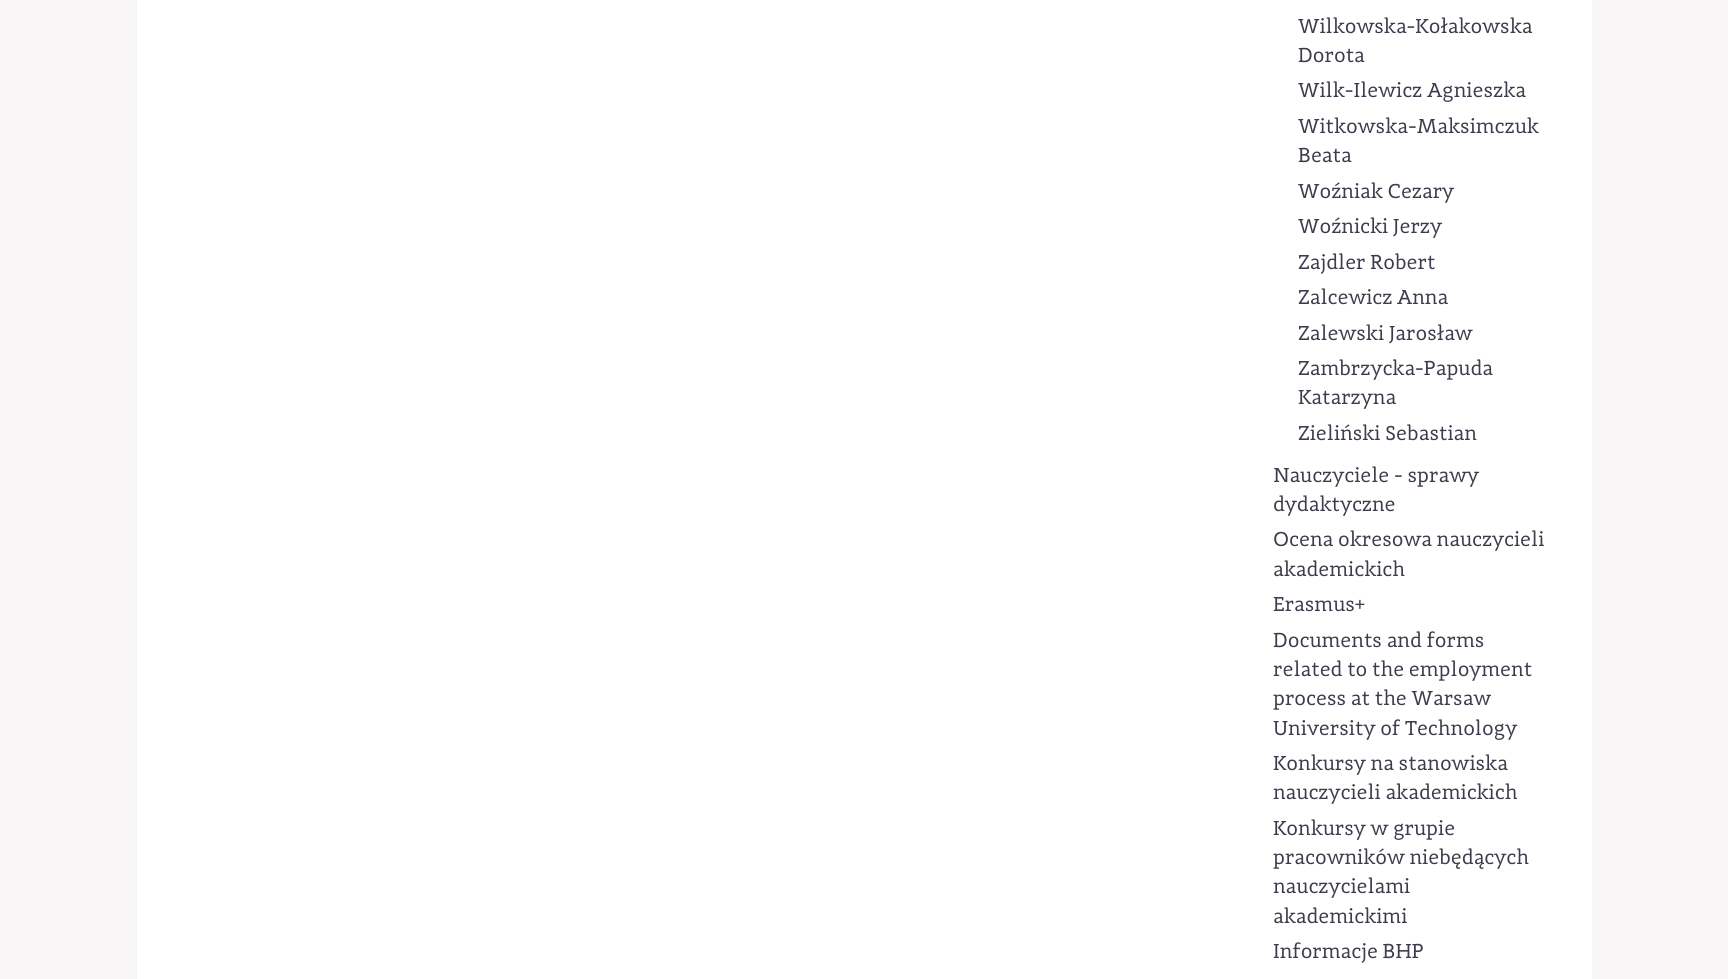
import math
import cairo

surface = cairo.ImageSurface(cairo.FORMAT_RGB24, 1728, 979)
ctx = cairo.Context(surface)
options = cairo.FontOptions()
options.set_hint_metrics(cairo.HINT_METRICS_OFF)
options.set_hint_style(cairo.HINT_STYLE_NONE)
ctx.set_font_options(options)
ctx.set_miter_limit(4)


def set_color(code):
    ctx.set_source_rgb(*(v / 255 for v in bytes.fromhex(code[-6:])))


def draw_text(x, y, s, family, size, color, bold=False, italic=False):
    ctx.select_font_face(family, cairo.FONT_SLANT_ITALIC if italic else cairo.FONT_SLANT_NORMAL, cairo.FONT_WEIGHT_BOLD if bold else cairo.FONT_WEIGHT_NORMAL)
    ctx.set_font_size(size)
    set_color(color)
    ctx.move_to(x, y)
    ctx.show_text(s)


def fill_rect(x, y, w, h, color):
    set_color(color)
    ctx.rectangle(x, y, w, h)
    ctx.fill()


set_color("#f7f5f6")
ctx.paint()
fill_rect(137, 0, 1455, 979, "#ffffff")
draw_text(1298, 33, "Wilkowska-Kołakowska", "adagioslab", 20.9, "#3c3c4c")
draw_text(1298, 62, "Dorota", "adagioslab", 20.9, "#3c3c4c")
draw_text(1298, 97, "Wilk-Ilewicz Agnieszka", "adagioslab", 20.9, "#3c3c4c")
draw_text(1298, 133, "Witkowska-Maksimczuk", "adagioslab", 20.9, "#3c3c4c")
draw_text(1298, 162, "Beata", "adagioslab", 20.9, "#3c3c4c")
draw_text(1298, 198, "Woźniak Cezary", "adagioslab", 20.9, "#3c3c4c")
draw_text(1298, 233, "Woźnicki Jerzy", "adagioslab", 20.9, "#3c3c4c")
draw_text(1298, 269, "Zajdler Robert", "adagioslab", 20.9, "#3c3c4c")
draw_text(1298, 304, "Zalcewicz Anna", "adagioslab", 20.9, "#3c3c4c")
draw_text(1298, 340, "Zalewski Jarosław", "adagioslab", 20.9, "#3c3c4c")
draw_text(1298, 375, "Zambrzycka-Papuda", "adagioslab", 20.9, "#3c3c4c")
draw_text(1298, 404, "Katarzyna", "adagioslab", 20.9, "#3c3c4c")
draw_text(1298, 440, "Zieliński Sebastian", "adagioslab", 20.9, "#3c3c4c")
draw_text(1273, 482, "Nauczyciele - sprawy", "adagioslab", 20.9, "#3c3c4c")
draw_text(1273, 511, "dydaktyczne", "adagioslab", 20.9, "#3c3c4c")
draw_text(1273, 546, "Ocena okresowa nauczycieli", "adagioslab", 20.9, "#3c3c4c")
draw_text(1273, 576, "akademickich", "adagioslab", 20.9, "#3c3c4c")
draw_text(1273, 611, "Erasmus+", "adagioslab", 20.9, "#3c3c4c")
draw_text(1273, 647, "Documents and forms", "adagioslab", 20.9, "#3c3c4c")
draw_text(1273, 676, "related to the employment", "adagioslab", 20.9, "#3c3c4c")
draw_text(1273, 705, "process at the Warsaw", "adagioslab", 20.9, "#3c3c4c")
draw_text(1273, 735, "University of Technology", "adagioslab", 20.9, "#3c3c4c")
draw_text(1273, 770, "Konkursy na stanowiska", "adagioslab", 20.9, "#3c3c4c")
draw_text(1273, 799, "nauczycieli akademickich", "adagioslab", 20.9, "#3c3c4c")
draw_text(1273, 835, "Konkursy w grupie", "adagioslab", 20.9, "#3c3c4c")
draw_text(1273, 864, "pracowników niebędących", "adagioslab", 20.9, "#3c3c4c")
draw_text(1273, 893, "nauczycielami", "adagioslab", 20.9, "#3c3c4c")
draw_text(1273, 923, "akademickimi", "adagioslab", 20.9, "#3c3c4c")
draw_text(1273, 958, "Informacje BHP", "adagioslab", 20.9, "#3c3c4c")
surface.write_to_png("output.png")
